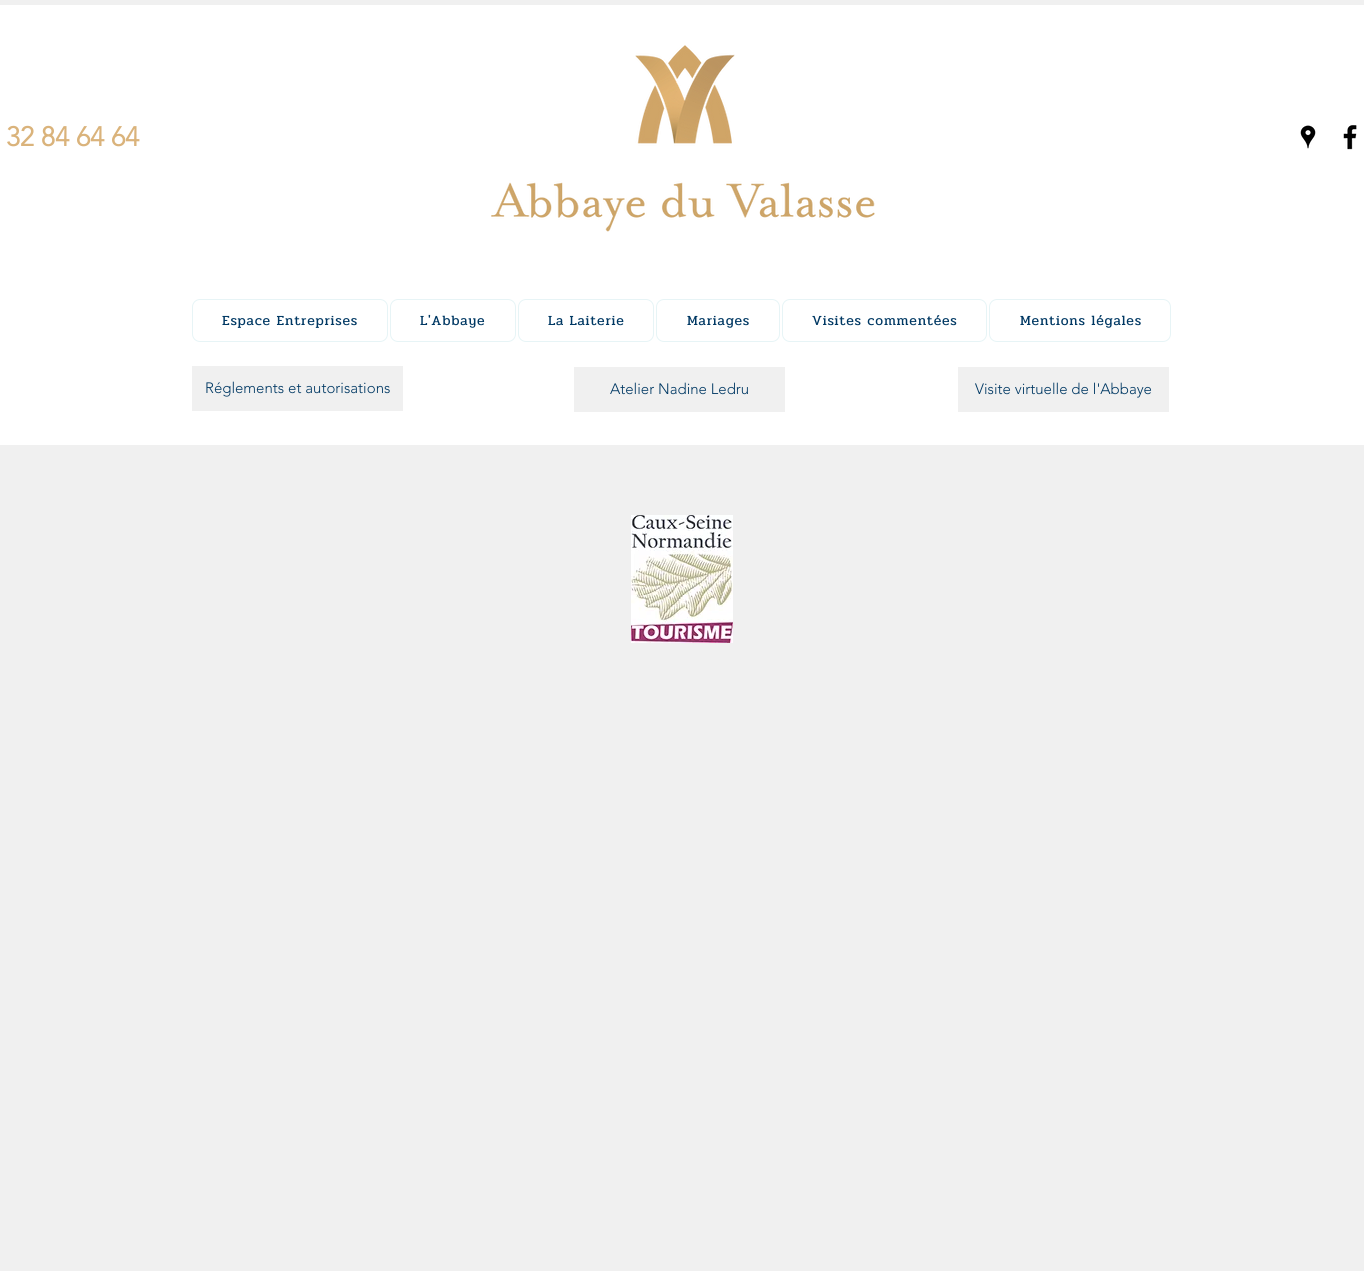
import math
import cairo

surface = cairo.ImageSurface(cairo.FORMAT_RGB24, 1364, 1271)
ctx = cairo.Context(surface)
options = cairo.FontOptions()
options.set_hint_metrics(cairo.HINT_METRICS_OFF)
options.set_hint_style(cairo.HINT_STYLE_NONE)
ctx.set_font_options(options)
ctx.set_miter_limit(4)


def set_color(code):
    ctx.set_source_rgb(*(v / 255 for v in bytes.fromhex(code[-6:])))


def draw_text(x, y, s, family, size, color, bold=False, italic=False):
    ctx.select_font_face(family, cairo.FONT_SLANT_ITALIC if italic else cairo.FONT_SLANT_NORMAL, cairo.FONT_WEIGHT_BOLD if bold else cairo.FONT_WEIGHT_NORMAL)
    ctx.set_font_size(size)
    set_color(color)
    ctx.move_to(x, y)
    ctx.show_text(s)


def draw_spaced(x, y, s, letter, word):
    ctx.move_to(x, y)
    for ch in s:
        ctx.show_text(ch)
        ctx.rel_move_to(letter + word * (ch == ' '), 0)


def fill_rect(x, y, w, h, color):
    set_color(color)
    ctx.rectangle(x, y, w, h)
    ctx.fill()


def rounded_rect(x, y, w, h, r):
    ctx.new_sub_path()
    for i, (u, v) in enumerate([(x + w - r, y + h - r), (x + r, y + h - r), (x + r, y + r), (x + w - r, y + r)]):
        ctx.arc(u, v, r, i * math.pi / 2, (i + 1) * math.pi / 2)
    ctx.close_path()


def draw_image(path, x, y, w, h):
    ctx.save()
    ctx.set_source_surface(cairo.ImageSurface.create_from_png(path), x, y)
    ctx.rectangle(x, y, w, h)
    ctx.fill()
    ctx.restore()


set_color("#f0f0f0")
ctx.paint()
fill_rect(0, 5, 1364, 440, "#ffffff")
draw_text(6, 146, "32 84 64 64", "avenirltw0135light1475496", 27, "#dab37b", bold=True)
draw_image("assets/img1.png", 491, 45, 384, 187)
draw_image("assets/img2.png", 1300, 125, 16, 24)
draw_image("assets/img3.png", 1343, 125, 14, 25)
rounded_rect(192.5, 299.5, 195, 42, 7.5)
set_color("#e7f4f6")
ctx.set_line_width(1)
ctx.stroke()
ctx.select_font_face("Pridi")
ctx.set_font_size(14)
set_color("#003863")
draw_spaced(222, 325, "Espace Entreprises", 0.75, 0)
rounded_rect(390.5, 299.5, 125, 42, 7.5)
set_color("#e7f4f6")
ctx.stroke()
set_color("#003863")
draw_spaced(420, 325, "L'Abbaye", 0.75, 0)
rounded_rect(518.5, 299.5, 135, 42, 7.5)
set_color("#e7f4f6")
ctx.stroke()
set_color("#003863")
draw_spaced(548, 325, "La Laiterie", 0.75, 0)
rounded_rect(656.5, 299.5, 123, 42, 7.5)
set_color("#e7f4f6")
ctx.stroke()
set_color("#003863")
draw_spaced(687, 325, "Mariages", 0.75, 0)
rounded_rect(782.5, 299.5, 204, 42, 7.5)
set_color("#e7f4f6")
ctx.stroke()
set_color("#003863")
draw_spaced(812, 325, "Visites commentées", 0.75, 0)
rounded_rect(989.5, 299.5, 181, 42, 7.5)
set_color("#e7f4f6")
ctx.stroke()
set_color("#003863")
draw_spaced(1020, 325, "Mentions légales", 0.75, 0)
fill_rect(192, 366, 211, 45, "#f0f0f0")
draw_text(205, 393, "Réglements et autorisations", "avenirltw0135light1475496 Light", 15, "#003863")
fill_rect(574, 367, 211, 45, "#f0f0f0")
draw_text(610, 394, "Atelier Nadine Ledru", "avenirltw0135light1475496 Light", 15, "#003863")
fill_rect(958, 367, 211, 45, "#f0f0f0")
draw_text(975, 394, "Visite virtuelle de l'Abbaye", "avenirltw0135light1475496 Light", 15, "#003863")
draw_image("assets/img4.png", 631, 515, 102, 128)
surface.write_to_png("output.png")
